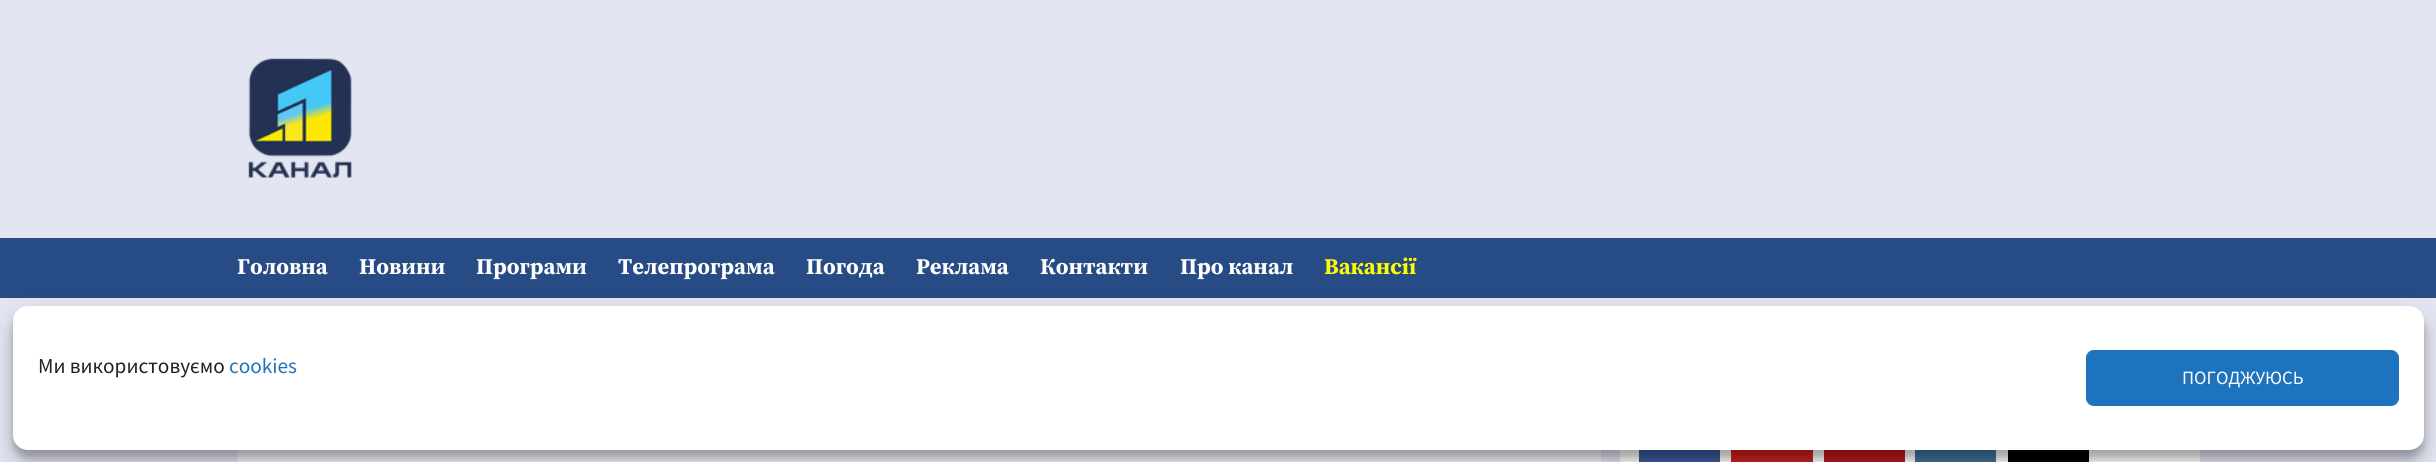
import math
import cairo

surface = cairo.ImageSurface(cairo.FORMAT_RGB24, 2436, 462)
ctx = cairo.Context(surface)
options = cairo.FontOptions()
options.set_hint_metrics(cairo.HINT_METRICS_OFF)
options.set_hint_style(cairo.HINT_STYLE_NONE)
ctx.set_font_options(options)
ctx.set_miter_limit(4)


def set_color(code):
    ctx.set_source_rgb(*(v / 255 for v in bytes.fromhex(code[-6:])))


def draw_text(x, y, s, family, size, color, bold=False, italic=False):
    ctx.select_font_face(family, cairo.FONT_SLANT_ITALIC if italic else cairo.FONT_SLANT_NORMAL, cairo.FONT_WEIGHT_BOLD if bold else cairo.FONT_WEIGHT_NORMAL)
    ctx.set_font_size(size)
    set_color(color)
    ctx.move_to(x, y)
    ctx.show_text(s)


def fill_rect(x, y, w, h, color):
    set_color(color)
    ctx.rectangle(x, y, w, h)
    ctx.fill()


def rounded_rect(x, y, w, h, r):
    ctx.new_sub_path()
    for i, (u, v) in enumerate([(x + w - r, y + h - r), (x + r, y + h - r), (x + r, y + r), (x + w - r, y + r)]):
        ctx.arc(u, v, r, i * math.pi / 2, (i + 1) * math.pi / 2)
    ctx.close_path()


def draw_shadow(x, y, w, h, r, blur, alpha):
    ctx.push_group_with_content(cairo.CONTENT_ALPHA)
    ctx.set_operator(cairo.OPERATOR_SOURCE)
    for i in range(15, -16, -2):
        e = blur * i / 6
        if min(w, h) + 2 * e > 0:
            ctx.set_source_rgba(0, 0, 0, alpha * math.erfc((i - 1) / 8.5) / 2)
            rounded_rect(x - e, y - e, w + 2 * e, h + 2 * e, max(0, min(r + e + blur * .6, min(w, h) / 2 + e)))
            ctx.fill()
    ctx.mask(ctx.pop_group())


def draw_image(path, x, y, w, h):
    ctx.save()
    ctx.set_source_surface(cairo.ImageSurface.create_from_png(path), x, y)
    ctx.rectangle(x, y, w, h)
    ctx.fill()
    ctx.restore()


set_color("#e3e5f3")
ctx.paint()
draw_image("assets/img1.png", 248, 58, 104, 120)
fill_rect(0, 238, 2436, 60, "#264b85")
draw_text(237, 274, "Головна", "Source Serif Pro", 22.5, "#ffffff", bold=True)
draw_text(359, 274, "Новини", "Source Serif Pro", 22.5, "#ffffff", bold=True)
draw_text(476, 274, "Програми", "Source Serif Pro", 22.5, "#ffffff", bold=True)
draw_text(618, 274, "Телепрограма", "Source Serif Pro", 22.5, "#ffffff", bold=True)
draw_text(806, 274, "Погода", "Source Serif Pro", 22.5, "#ffffff", bold=True)
draw_text(916, 274, "Реклама", "Source Serif Pro", 22.5, "#ffffff", bold=True)
draw_text(1040, 274, "Контакти", "Source Serif Pro", 22.5, "#ffffff", bold=True)
draw_text(1180, 274, "Про канал", "Source Serif Pro", 22.5, "#ffffff", bold=True)
draw_text(1324, 274, "Вакансії", "Source Serif Pro", 22.5, "#ffff00", bold=True)
fill_rect(238, 450, 1363, 12, "#f5f6fc")
fill_rect(1620, 450, 580, 12, "#ffffff")
fill_rect(1639, 450, 81, 12, "#3b5999")
fill_rect(1731, 450, 82, 12, "#cd201f")
fill_rect(1824, 450, 81, 12, "#bb1919")
fill_rect(1915, 450, 81, 12, "#3f729b")
fill_rect(2008, 450, 81, 12, "#000000")
set_color("#000000")
draw_shadow(13, 314, 2411, 144, 15, 4, 0.23)
draw_shadow(13, 319, 2411, 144, 15, 12.5, 0.19)
set_color("#ffffff")
rounded_rect(13, 306, 2411, 144, 15)
ctx.fill()
draw_text(38, 373, "Ми використовуємо", "Source Sans Pro", 21.25, "#222222")
draw_text(229, 373, "cookies", "Source Sans Pro", 21.25, "#1e73be")
rounded_rect(2086.5, 350.5, 312, 55, 7.5)
ctx.fill_preserve()
ctx.set_line_width(1)
ctx.stroke()
draw_text(2182, 384, "ПОГОДЖУЮСЬ", "Source Sans Pro", 18.75, "#ffffff")
surface.write_to_png("output.png")
